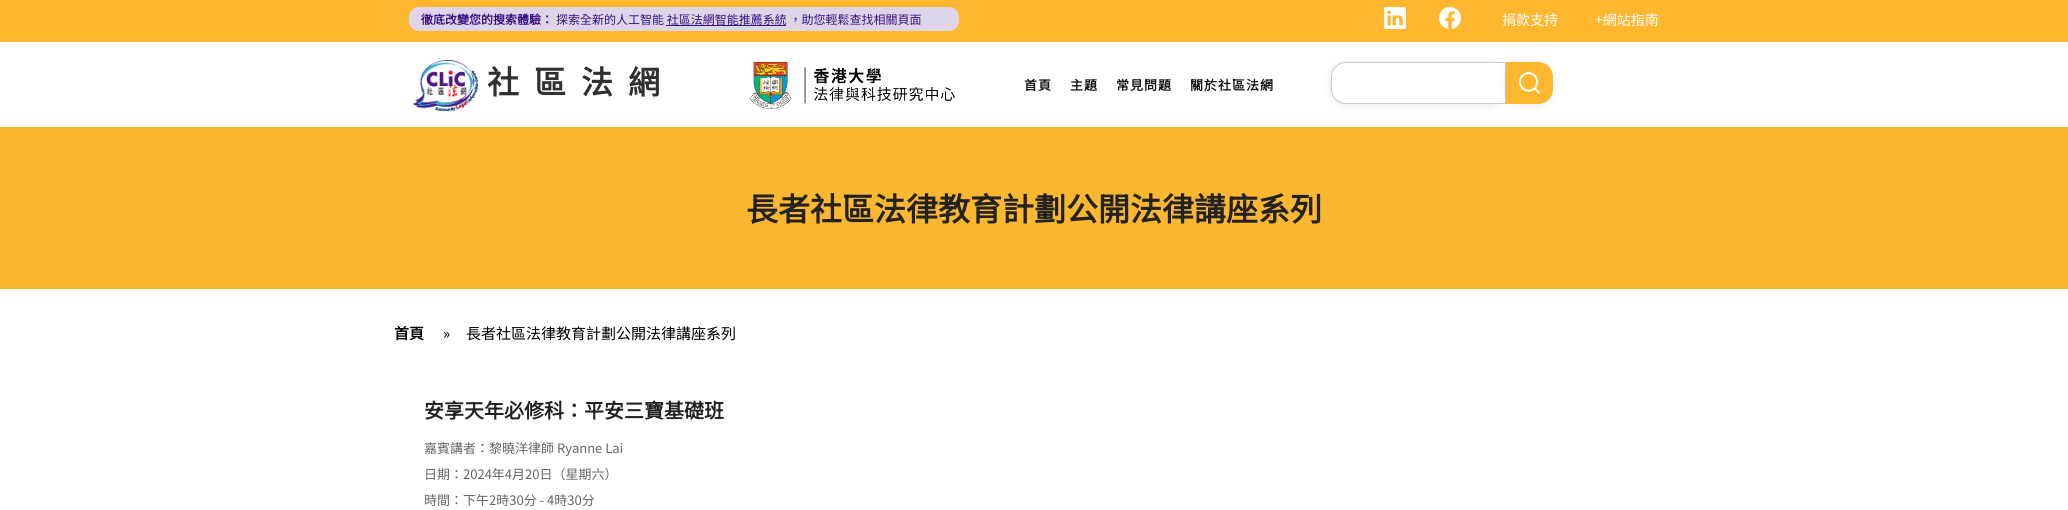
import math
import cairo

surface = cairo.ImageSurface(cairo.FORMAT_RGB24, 2068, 510)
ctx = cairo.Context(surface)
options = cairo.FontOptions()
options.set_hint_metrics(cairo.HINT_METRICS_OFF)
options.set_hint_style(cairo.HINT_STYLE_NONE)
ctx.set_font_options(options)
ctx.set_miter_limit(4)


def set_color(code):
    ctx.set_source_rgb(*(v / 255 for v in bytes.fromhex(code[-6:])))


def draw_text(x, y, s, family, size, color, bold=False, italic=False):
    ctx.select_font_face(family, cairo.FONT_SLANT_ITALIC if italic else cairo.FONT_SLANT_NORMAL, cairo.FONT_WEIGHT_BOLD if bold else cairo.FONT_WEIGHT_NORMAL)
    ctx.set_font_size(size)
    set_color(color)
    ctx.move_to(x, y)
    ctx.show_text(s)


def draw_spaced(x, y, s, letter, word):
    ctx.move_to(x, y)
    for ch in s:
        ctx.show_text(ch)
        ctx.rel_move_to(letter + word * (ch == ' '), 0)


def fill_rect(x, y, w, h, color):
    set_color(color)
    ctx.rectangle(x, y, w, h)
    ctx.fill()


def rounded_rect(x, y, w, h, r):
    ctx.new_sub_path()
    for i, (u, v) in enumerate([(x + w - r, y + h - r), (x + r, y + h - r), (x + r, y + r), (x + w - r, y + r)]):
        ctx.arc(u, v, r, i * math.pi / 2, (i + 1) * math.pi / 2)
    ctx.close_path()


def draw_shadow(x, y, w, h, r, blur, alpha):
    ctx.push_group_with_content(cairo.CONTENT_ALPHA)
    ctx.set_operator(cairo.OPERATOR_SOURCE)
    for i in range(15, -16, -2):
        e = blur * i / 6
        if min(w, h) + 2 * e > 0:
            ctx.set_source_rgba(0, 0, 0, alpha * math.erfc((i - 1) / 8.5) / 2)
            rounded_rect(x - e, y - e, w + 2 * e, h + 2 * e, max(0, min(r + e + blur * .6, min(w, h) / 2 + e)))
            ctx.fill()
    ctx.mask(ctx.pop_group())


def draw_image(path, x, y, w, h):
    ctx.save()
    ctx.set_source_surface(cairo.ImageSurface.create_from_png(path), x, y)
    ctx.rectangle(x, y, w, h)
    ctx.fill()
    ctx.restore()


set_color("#ffffff")
ctx.paint()
fill_rect(0, 0, 2068, 42, "#ffb730")
set_color("#ded6e8")
rounded_rect(409, 7, 550, 24, 10)
ctx.fill()
draw_text(421, 24, "徹底改變您的搜索體驗：", "Noto Sans HK", 12, "#391385", bold=True)
draw_text(556, 24, "探索全新的人工智能 社區法網智能推薦系統 ，助您輕鬆查找相關頁面", "Noto Sans HK Thin", 12, "#391385")
fill_rect(666, 25, 120, 1, "#391385")
draw_image("assets/img1.png", 1384, 7, 22, 22)
draw_image("assets/img2.png", 1439, 7, 22, 22)
draw_text(1502, 25, "捐款支持", "Noto Sans HK Thin", 14, "#ffffff")
draw_text(1595, 25, "+網站指南", "Noto Sans HK Thin", 14, "#ffffff")
draw_image("assets/img3.png", 413, 60, 65, 51)
ctx.select_font_face("Noto Sans HK", cairo.FONT_SLANT_NORMAL, cairo.FONT_WEIGHT_BOLD)
ctx.set_font_size(32)
set_color("#303030")
draw_spaced(487, 94, "社區法網", 15, 0)
draw_image("assets/img4.png", 750, 62, 205, 47)
ctx.set_font_size(13)
set_color("#181818")
draw_spaced(1024, 90, "首頁", 1, 0)
draw_spaced(1070, 90, "主題", 1, 0)
draw_spaced(1116, 90, "常見問題", 1, 0)
draw_spaced(1190, 90, "關於社區法網", 1, 0)
set_color("#000000")
draw_shadow(1330, 63, 175, 42, 15, 4, 0.1)
set_color("#ffffff")
ctx.new_path()
ctx.move_to(1346, 62.5)
ctx.line_to(1505.5, 62.5)
ctx.line_to(1505.5, 103.5)
ctx.line_to(1346, 103.5)
ctx.curve_to(1338, 103.5, 1331.5, 97, 1331.5, 89)
ctx.line_to(1331.5, 77)
ctx.curve_to(1331.5, 69, 1338, 62.5, 1346, 62.5)
ctx.close_path()
ctx.fill_preserve()
set_color("#cccccc")
ctx.set_line_width(1)
ctx.stroke()
set_color("#000000")
draw_shadow(1505, 63, 47, 42, 15, 4, 0.1)
set_color("#ffb730")
ctx.new_path()
ctx.move_to(1506, 62)
ctx.line_to(1538, 62)
ctx.curve_to(1546.5, 62, 1553, 68.5, 1553, 77)
ctx.line_to(1553, 89)
ctx.curve_to(1553, 97.5, 1546.5, 104, 1538, 104)
ctx.line_to(1506, 104)
ctx.close_path()
ctx.fill()
draw_image("assets/img5.png", 1519, 72, 22, 22)
fill_rect(0, 127, 2068, 162, "#fcb730")
draw_text(746, 221, "長者社區法律教育計劃公開法律講座系列", "Noto Sans HK", 32, "#222222", bold=True)
draw_text(394, 339, "首頁", "Noto Sans HK", 15, "#000000", bold=True)
draw_text(443, 339, "»", "Noto Sans HK Thin", 15, "#000000")
draw_text(466, 339, "長者社區法律教育計劃公開法律講座系列", "Noto Sans HK Thin", 15, "#000000")
draw_text(424, 418, "安享天年必修科：平安三寶基礎班", "Noto Sans HK", 20, "#222222", bold=True)
draw_text(424, 453, "嘉賓講者：黎曉洋律師 Ryanne Lai", "Noto Sans HK Thin", 13, "#666666")
draw_text(424, 479, "日期：2024年4月20日（星期六）", "Noto Sans HK Thin", 13, "#666666")
draw_text(424, 505, "時間：下午2時30分 - 4時30分", "Noto Sans HK Thin", 13, "#666666")
surface.write_to_png("output.png")
